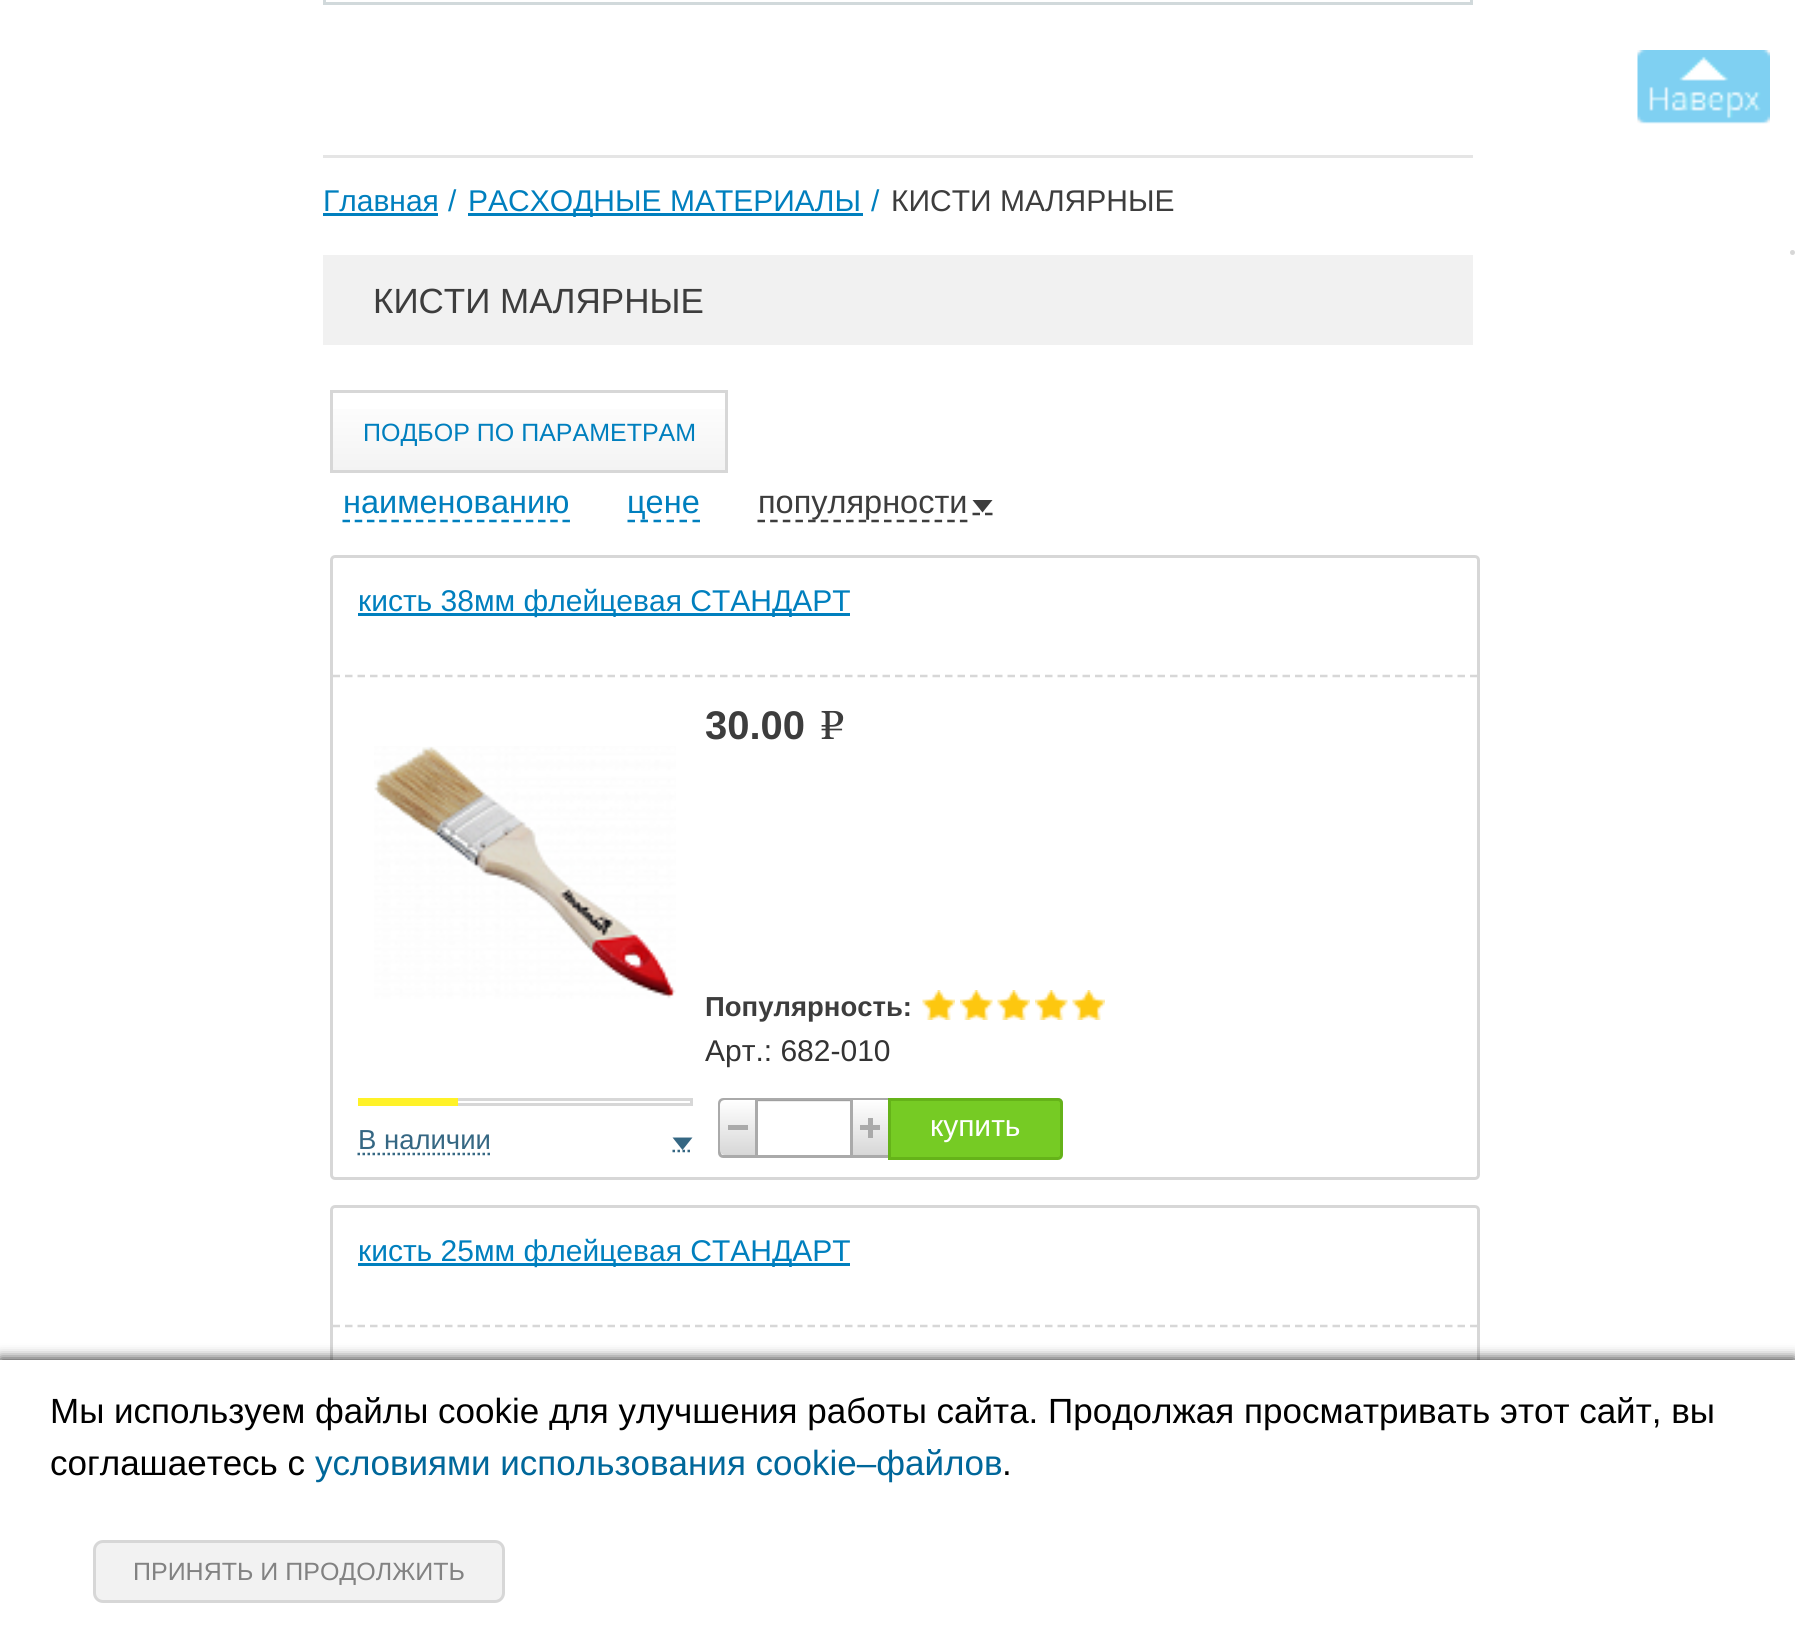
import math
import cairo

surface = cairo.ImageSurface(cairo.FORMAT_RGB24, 1795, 1626)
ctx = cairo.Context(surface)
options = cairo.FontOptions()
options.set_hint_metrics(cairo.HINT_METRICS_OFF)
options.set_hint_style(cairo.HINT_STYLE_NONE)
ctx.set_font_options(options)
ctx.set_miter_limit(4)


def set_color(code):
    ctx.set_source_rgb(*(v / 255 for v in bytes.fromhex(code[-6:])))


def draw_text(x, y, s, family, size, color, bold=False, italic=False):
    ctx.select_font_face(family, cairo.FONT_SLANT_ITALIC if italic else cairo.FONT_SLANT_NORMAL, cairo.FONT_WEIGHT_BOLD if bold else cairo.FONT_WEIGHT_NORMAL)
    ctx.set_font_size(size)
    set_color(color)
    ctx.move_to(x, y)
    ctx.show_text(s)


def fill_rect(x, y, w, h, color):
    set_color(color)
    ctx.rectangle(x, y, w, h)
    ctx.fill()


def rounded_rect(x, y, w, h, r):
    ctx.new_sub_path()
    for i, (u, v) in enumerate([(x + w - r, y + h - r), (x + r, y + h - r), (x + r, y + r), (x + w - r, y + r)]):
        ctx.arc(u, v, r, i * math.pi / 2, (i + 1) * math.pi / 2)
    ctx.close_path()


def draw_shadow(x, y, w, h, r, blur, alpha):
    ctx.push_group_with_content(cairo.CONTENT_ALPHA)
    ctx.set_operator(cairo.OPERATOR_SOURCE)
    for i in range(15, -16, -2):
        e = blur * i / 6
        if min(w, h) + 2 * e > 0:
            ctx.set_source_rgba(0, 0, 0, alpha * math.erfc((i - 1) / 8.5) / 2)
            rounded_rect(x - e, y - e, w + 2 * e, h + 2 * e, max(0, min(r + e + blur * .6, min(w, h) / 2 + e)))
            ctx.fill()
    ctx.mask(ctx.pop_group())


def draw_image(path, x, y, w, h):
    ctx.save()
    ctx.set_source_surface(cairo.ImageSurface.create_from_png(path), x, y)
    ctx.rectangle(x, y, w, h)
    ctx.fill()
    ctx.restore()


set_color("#ffffff")
ctx.paint()
draw_image("assets/img1.png", 1637, 50, 133, 74)
ctx.rectangle(324.5, -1.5, 1147, 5)
set_color("#d1d9db")
ctx.set_line_width(3)
ctx.stroke()
fill_rect(323, 155, 1150, 3, "#e5e5e5")
draw_text(323, 211, "Главная", "Liberation Sans", 30, "#007fbe")
fill_rect(323, 213, 115, 3, "#007fbe")
draw_text(448, 211, "/", "Liberation Sans", 30, "#007fbe")
fill_rect(468, 213, 395, 3, "#007fbe")
draw_text(468, 211, "РАСХОДНЫЕ МАТЕРИАЛЫ", "Liberation Sans", 30, "#007fbe")
draw_text(871, 211, "/", "Liberation Sans", 30, "#007fbe")
draw_text(891, 211, "КИСТИ МАЛЯРНЫЕ", "Liberation Sans", 30, "#3d3d3d")
fill_rect(323, 255, 1150, 90, "#f1f1f1")
draw_text(373, 313, "КИСТИ МАЛЯРНЫЕ", "Liberation Sans", 35, "#3d3d3d")
ctx.rectangle(331.5, 391.5, 395, 80)
set_color("#d7d7d7")
ctx.stroke()
gradient = cairo.LinearGradient(529, 393, 529, 470)
gradient.add_color_stop_rgba(0, 1, 1, 1, 1)
gradient.add_color_stop_rgba(1, 0.953, 0.953, 0.953, 1)
ctx.set_source(gradient)
ctx.rectangle(333, 409, 392, 61)
ctx.fill()
draw_text(363, 441, "ПОДБОР ПО ПАРАМЕТРАМ", "Liberation Sans", 25, "#007fbe")
draw_text(343, 513, "наименованию", "Liberation Sans", 32.5, "#007fbe")
ctx.new_path()
ctx.move_to(342.5, 521)
ctx.line_to(570, 521)
ctx.set_line_width(2.5)
ctx.set_dash([7.5, 4.72])
ctx.stroke()
ctx.new_path()
ctx.move_to(627.5, 521)
ctx.line_to(700, 521)
ctx.set_dash([7.5, 5.5])
ctx.stroke()
draw_text(627, 513, "цене", "Liberation Sans", 32.5, "#007fbe")
ctx.new_path()
ctx.move_to(757.5, 521)
ctx.line_to(967.5, 521)
set_color("#3d3d3d")
ctx.set_dash([7.5, 5.15])
ctx.stroke()
ctx.new_path()
ctx.move_to(972.5, 514)
ctx.line_to(980, 514)
ctx.move_to(985, 514)
ctx.line_to(992.5, 514)
ctx.set_dash([])
ctx.stroke()
draw_text(758, 513, "популярности", "Liberation Sans", 32.5, "#3d3d3d")
ctx.new_path()
ctx.move_to(972.5, 500)
ctx.line_to(992.5, 500)
ctx.line_to(982.5, 512.5)
ctx.close_path()
ctx.fill()
rounded_rect(331.5, 556.5, 1147, 622, 3.5)
set_color("#d7d7d7")
ctx.set_line_width(3)
ctx.stroke()
ctx.new_path()
ctx.move_to(332.5, 676)
ctx.line_to(1477.5, 676)
ctx.set_line_width(2.5)
ctx.set_dash([7.5, 5])
ctx.stroke()
fill_rect(358, 613, 492, 3, "#007fbe")
draw_text(358, 611, "кисть 38мм флейцевая СТАНДАРТ", "Liberation Sans", 30, "#007fbe")
draw_image("assets/img2.png", 374, 746, 302, 253)
draw_text(705, 739, "30.00", "Liberation Sans", 40, "#3d3d3d", bold=True)
draw_text(818, 739, "e", "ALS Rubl", 40, "#3d3d3d")
draw_text(705, 1016, "Популярность:", "Liberation Sans", 27.5, "#3d3d3d", bold=True)
draw_image("assets/img3.png", 922, 990, 33, 30)
draw_image("assets/img4.png", 960, 990, 33, 30)
draw_image("assets/img3.png", 997, 990, 33, 30)
draw_image("assets/img5.png", 1035, 990, 33, 30)
draw_image("assets/img3.png", 1072, 990, 33, 30)
draw_text(705, 1061, "Арт.: 682-010", "Liberation Sans", 30, "#333333")
ctx.rectangle(359.5, 1099.5, 332, 5)
set_color("#d7d7d7")
ctx.set_line_width(3)
ctx.set_dash([])
ctx.stroke()
fill_rect(358, 1098, 100, 8, "#fff228")
ctx.new_path()
ctx.move_to(357.5, 1154)
ctx.line_to(490, 1154)
set_color("#356783")
ctx.set_line_width(2.5)
ctx.set_dash([2.5, 2.5])
ctx.stroke()
ctx.new_path()
ctx.move_to(672.5, 1151)
ctx.line_to(692.5, 1151)
ctx.stroke()
draw_text(358, 1149, "В наличии", "Liberation Sans", 27.5, "#356783")
ctx.new_path()
ctx.move_to(672.5, 1137.5)
ctx.line_to(692.5, 1137.5)
ctx.line_to(682.5, 1150)
ctx.close_path()
ctx.fill()
rounded_rect(719.5, 1099.5, 342, 57, 3.5)
set_color("#aaaaaa")
ctx.set_line_width(3)
ctx.set_dash([])
ctx.stroke()
ctx.set_source_rgba(0, 0, 0, 0.07)
ctx.new_path()
ctx.move_to(730, 1102)
ctx.line_to(878, 1102)
ctx.curve_to(883, 1102, 888, 1107, 888, 1112)
ctx.line_to(888, 1110)
ctx.curve_to(888, 1104, 884, 1100, 878, 1100)
ctx.line_to(730, 1100)
ctx.curve_to(724, 1100, 720, 1104, 720, 1110)
ctx.line_to(720, 1112)
ctx.curve_to(720, 1107, 724, 1102, 730, 1102)
ctx.close_path()
ctx.fill()
gradient = cairo.LinearGradient(738, 1155, 738, 1100)
gradient.add_color_stop_rgba(0, 0.843, 0.843, 0.843, 1)
gradient.add_color_stop_rgba(1, 1, 1, 1, 1)
ctx.set_source(gradient)
ctx.new_path()
ctx.move_to(725, 1100)
ctx.line_to(758, 1100)
ctx.line_to(758, 1155)
ctx.line_to(725, 1155)
ctx.curve_to(722, 1155, 720, 1153, 720, 1150)
ctx.line_to(720, 1105)
ctx.curve_to(720, 1102, 722, 1100, 725, 1100)
ctx.close_path()
ctx.fill()
fill_rect(755, 1100, 3, 55, "#aaaaaa")
fill_rect(728, 1125, 20, 5, "#aaaaaa")
gradient = cairo.LinearGradient(870, 1155, 870, 1100)
gradient.add_color_stop_rgba(0, 0.843, 0.843, 0.843, 1)
gradient.add_color_stop_rgba(1, 1, 1, 1, 1)
ctx.set_source(gradient)
ctx.rectangle(853, 1100, 35, 55)
ctx.fill()
fill_rect(850, 1100, 3, 55, "#aaaaaa")
fill_rect(860, 1125, 20, 5, "#aaaaaa")
fill_rect(868, 1118, 5, 20, "#aaaaaa")
set_color("#76cb24")
ctx.new_path()
ctx.move_to(889.5, 1099.5)
ctx.line_to(1058, 1099.5)
ctx.curve_to(1060, 1099.5, 1061.5, 1101, 1061.5, 1103)
ctx.line_to(1061.5, 1155)
ctx.curve_to(1061.5, 1157, 1060, 1158.5, 1058, 1158.5)
ctx.line_to(889.5, 1158.5)
ctx.close_path()
ctx.fill_preserve()
set_color("#65b319")
ctx.stroke()
draw_text(930, 1136, "купить", "Liberation Sans", 30, "#ffffff")
rounded_rect(331.5, 1206.5, 1147, 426, 3.5)
set_color("#d7d7d7")
ctx.stroke()
ctx.new_path()
ctx.move_to(332.5, 1326)
ctx.line_to(1477.5, 1326)
ctx.set_line_width(2.5)
ctx.set_dash([7.5, 5])
ctx.stroke()
fill_rect(358, 1263, 492, 3, "#007fbe")
draw_text(358, 1261, "кисть 25мм флейцевая СТАНДАРТ", "Liberation Sans", 30, "#007fbe")
set_color("#d7d7d7")
ctx.new_path()
ctx.arc(1792.5, 252.5, 2.5, 0, 2 * math.pi)
ctx.fill()
set_color("#000000")
draw_shadow(0, 1358, 1795, 267, 0, 6, 0.75)
fill_rect(0, 1360, 1795, 266, "#ffffff")
draw_text(50, 1423, "Мы используем файлы cookie для улучшения работы сайта. Продолжая просматривать этот сайт, вы", "Liberation Sans", 35, "#000000")
draw_text(50, 1475, "соглашаетесь с", "Liberation Sans", 35, "#000000")
draw_text(315, 1475, "условиями использования cookie–файлов", "Liberation Sans", 35, "#00679a")
draw_text(1002, 1475, ".", "Liberation Sans", 35, "#000000")
set_color("#f2f2f2")
rounded_rect(94.5, 1541.5, 409, 60, 8.5)
ctx.fill_preserve()
set_color("#d7d7d7")
ctx.set_line_width(3)
ctx.set_dash([])
ctx.stroke()
draw_text(133, 1580, "ПРИНЯТЬ И ПРОДОЛЖИТЬ", "Liberation Sans", 25, "#828282")
surface.write_to_png("output.png")
